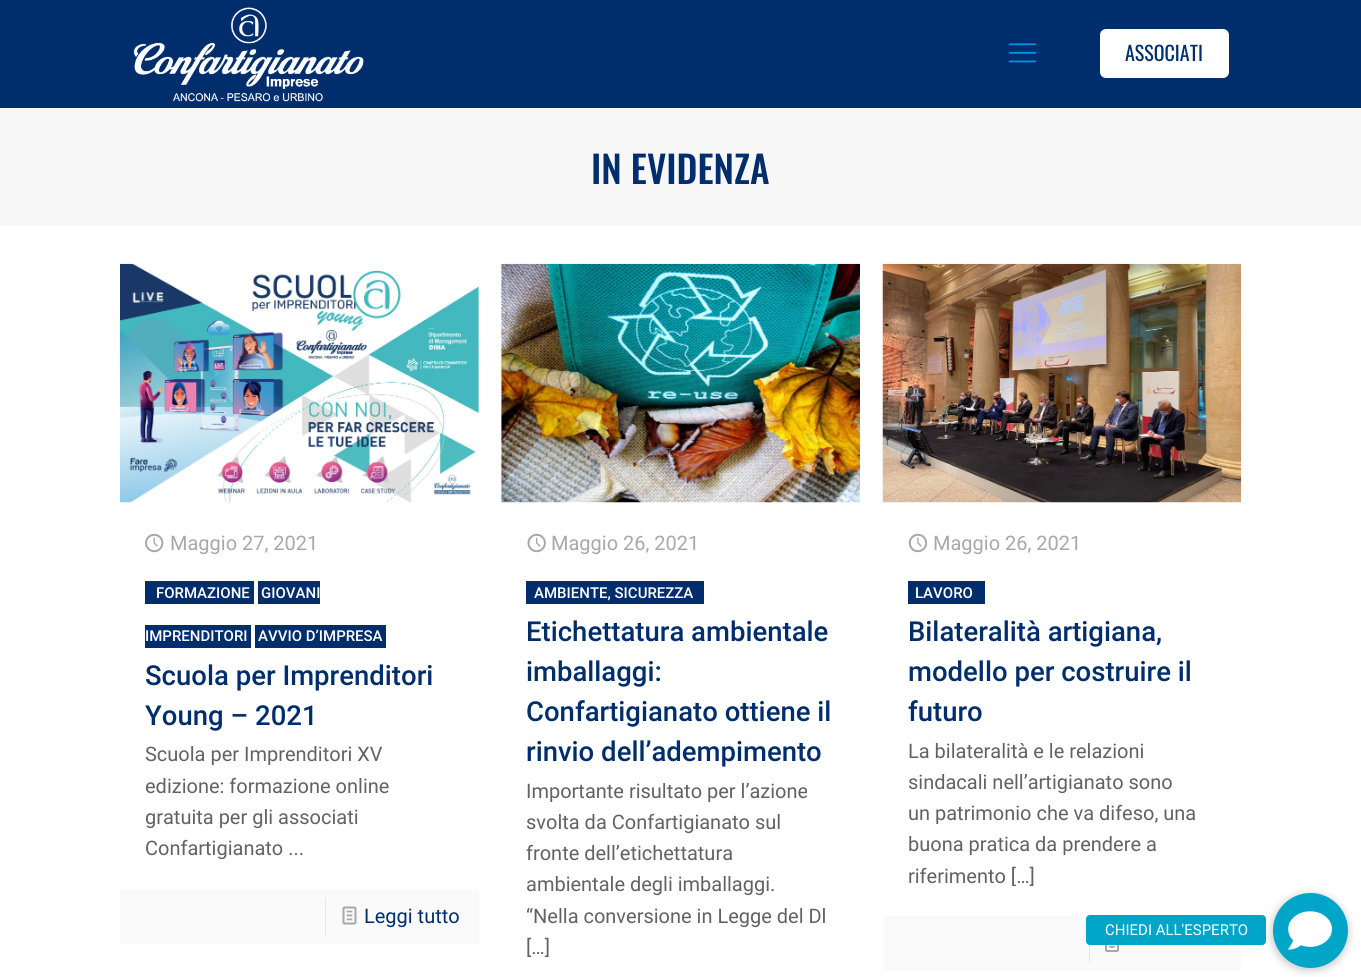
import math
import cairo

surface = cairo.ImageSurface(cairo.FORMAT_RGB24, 1361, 977)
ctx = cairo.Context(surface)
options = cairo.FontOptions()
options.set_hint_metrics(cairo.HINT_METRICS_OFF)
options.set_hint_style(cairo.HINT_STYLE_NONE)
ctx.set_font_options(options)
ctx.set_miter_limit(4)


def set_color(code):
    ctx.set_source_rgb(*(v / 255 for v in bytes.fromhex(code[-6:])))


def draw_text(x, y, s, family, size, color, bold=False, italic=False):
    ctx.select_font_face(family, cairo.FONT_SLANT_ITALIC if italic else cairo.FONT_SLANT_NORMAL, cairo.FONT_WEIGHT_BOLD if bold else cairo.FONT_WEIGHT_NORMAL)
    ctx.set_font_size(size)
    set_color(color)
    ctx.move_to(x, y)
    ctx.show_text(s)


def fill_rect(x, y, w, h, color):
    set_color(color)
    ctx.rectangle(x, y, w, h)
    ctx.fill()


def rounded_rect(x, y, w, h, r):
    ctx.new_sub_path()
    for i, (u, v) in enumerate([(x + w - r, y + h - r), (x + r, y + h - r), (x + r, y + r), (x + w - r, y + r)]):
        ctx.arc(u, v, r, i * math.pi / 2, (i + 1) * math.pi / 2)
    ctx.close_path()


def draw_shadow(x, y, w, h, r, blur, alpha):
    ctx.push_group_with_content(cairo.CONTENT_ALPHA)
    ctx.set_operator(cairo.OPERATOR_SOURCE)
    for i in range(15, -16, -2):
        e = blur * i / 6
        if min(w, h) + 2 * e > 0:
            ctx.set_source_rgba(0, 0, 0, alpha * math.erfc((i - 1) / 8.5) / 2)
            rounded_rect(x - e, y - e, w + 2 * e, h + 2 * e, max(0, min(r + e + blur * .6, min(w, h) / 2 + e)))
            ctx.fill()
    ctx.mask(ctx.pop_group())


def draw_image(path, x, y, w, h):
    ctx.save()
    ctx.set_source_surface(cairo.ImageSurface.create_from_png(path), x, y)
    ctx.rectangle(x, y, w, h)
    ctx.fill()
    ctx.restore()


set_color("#ffffff")
ctx.paint()
fill_rect(0, 0, 1361, 108, "#002e6d")
draw_image("assets/img1.png", 133, 7, 231, 95)
draw_image("assets/img2.png", 1008, 43, 29, 20)
set_color("#ffffff")
rounded_rect(1100, 29, 129, 49, 6)
ctx.fill()
draw_text(1125, 61, "ASSOCIATI", "Oswald", 20, "#002e6d")
fill_rect(0, 108, 1361, 118, "#f7f7f7")
draw_text(591, 184, "IN EVIDENZA", "Oswald Medium", 37.5, "#002e6d")
draw_image("assets/img3.png", 120, 263, 359, 240)
draw_image("assets/img4.png", 145, 533, 19, 20)
draw_text(170, 550, "Maggio 27, 2021", "Roboto", 20, "#a8a8a8")
fill_rect(145, 581, 109, 23, "#002e6d")
draw_text(156, 598, "FORMAZIONE", "Roboto Medium", 15, "#ffffff")
fill_rect(258, 581, 62, 23, "#002e6d")
draw_text(261, 598, "GIOVANI", "Roboto Medium", 15, "#ffffff")
fill_rect(145, 625, 106, 23, "#002e6d")
draw_text(145, 641, "IMPRENDITORI", "Roboto Medium", 15, "#ffffff")
fill_rect(255, 625, 131, 23, "#002e6d")
draw_text(258, 641, "AVVIO D’IMPRESA", "Roboto Medium", 15, "#ffffff")
draw_text(145, 685, "Scuola per Imprenditori", "Roboto Medium", 27.5, "#002e6d")
draw_text(145, 725, "Young – 2021", "Roboto Medium", 27.5, "#002e6d")
draw_text(145, 761, "Scuola per Imprenditori XV", "Roboto", 20, "#626262")
draw_text(145, 793, "edizione: formazione online", "Roboto", 20, "#626262")
draw_text(145, 824, "gratuita per gli associati", "Roboto", 20, "#626262")
draw_text(145, 855, "Confartigianato ...", "Roboto", 20, "#626262")
fill_rect(120, 889, 359, 55, "#fafafa")
fill_rect(325, 898, 1, 37, "#e6e6e6")
draw_image("assets/img5.png", 342, 906, 15, 19)
draw_text(364, 923, "Leggi tutto", "Roboto", 20, "#002e6d")
draw_image("assets/img6.png", 501, 263, 359, 240)
draw_image("assets/img7.png", 527, 533, 19, 20)
draw_text(551, 550, "Maggio 26, 2021", "Roboto", 20, "#a8a8a8")
fill_rect(526, 581, 178, 23, "#002e6d")
draw_text(534, 598, "AMBIENTE, SICUREZZA", "Roboto Medium", 15, "#ffffff")
draw_text(526, 641, "Etichettatura ambientale", "Roboto Medium", 27.5, "#002e6d")
draw_text(526, 681, "imballaggi:", "Roboto Medium", 27.5, "#002e6d")
draw_text(526, 721, "Confartigianato ottiene il", "Roboto Medium", 27.5, "#002e6d")
draw_text(526, 761, "rinvio dell’adempimento", "Roboto Medium", 27.5, "#002e6d")
draw_text(526, 798, "Importante risultato per l’azione", "Roboto", 20, "#626262")
draw_text(526, 829, "svolta da Confartigianato sul", "Roboto", 20, "#626262")
draw_text(526, 860, "fronte dell’etichettatura", "Roboto", 20, "#626262")
draw_text(526, 891, "ambientale degli imballaggi.", "Roboto", 20, "#626262")
draw_text(526, 923, "“Nella conversione in Legge del Dl", "Roboto", 20, "#626262")
draw_text(526, 954, "[…]", "Roboto", 20, "#626262")
draw_image("assets/img8.png", 882, 263, 360, 240)
draw_image("assets/img9.png", 908, 533, 20, 20)
draw_text(933, 550, "Maggio 26, 2021", "Roboto", 20, "#a8a8a8")
fill_rect(908, 581, 77, 23, "#002e6d")
draw_text(915, 598, "LAVORO", "Roboto Medium", 15, "#ffffff")
draw_text(908, 641, "Bilateralità artigiana,", "Roboto Medium", 27.5, "#002e6d")
draw_text(908, 681, "modello per costruire il", "Roboto Medium", 27.5, "#002e6d")
draw_text(908, 721, "futuro", "Roboto Medium", 27.5, "#002e6d")
draw_text(908, 758, "La bilateralità e le relazioni", "Roboto", 20, "#626262")
draw_text(908, 789, "sindacali nell’artigianato sono", "Roboto", 20, "#626262")
draw_text(908, 820, "un patrimonio che va difeso, una", "Roboto", 20, "#626262")
draw_text(908, 851, "buona pratica da prendere a", "Roboto", 20, "#626262")
draw_text(908, 883, "riferimento […]", "Roboto", 20, "#626262")
fill_rect(883, 916, 358, 55, "#fafafa")
fill_rect(1089, 944, 1, 19, "#e6e6e6")
draw_image("assets/img10.png", 1105, 945, 14, 7)
set_color("#000000")
draw_shadow(1271, 894, 78, 77, 38.5, 4, 0.2)
set_color("#01a5c8")
ctx.arc(1310.5, 930.5, 37.5, 0, 2 * math.pi)
ctx.fill()
rounded_rect(1086, 915, 180, 30, 4)
ctx.fill()
draw_text(1105, 935, "CHIEDI ALL'ESPERTO", "Roboto", 15, "#ffffff")
draw_image("assets/img11.png", 1288, 911, 44, 39)
surface.write_to_png("output.png")
